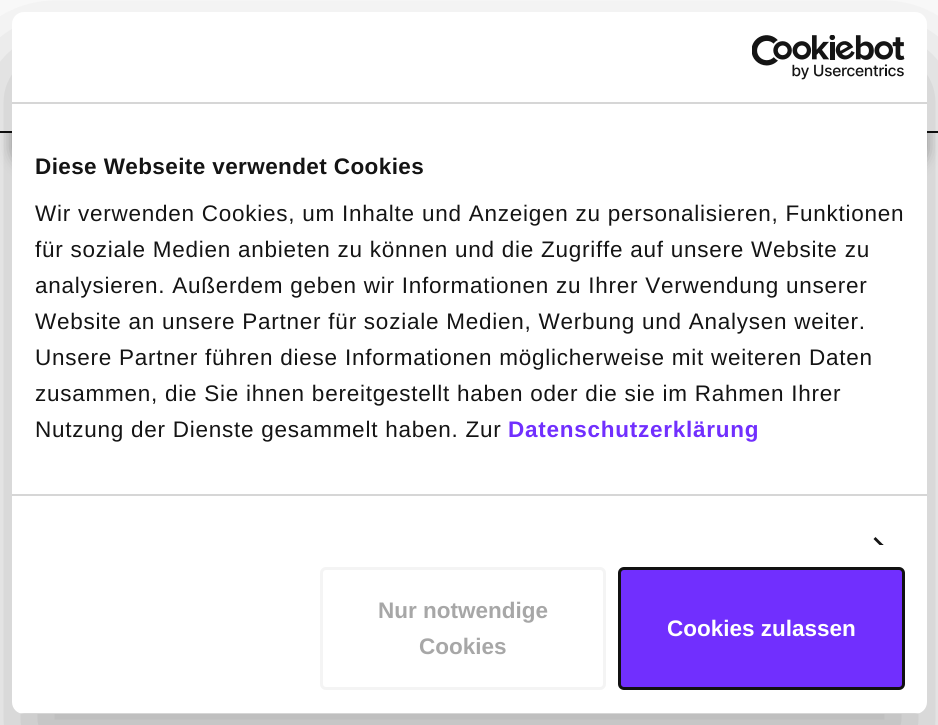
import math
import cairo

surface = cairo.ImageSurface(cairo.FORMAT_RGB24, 938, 725)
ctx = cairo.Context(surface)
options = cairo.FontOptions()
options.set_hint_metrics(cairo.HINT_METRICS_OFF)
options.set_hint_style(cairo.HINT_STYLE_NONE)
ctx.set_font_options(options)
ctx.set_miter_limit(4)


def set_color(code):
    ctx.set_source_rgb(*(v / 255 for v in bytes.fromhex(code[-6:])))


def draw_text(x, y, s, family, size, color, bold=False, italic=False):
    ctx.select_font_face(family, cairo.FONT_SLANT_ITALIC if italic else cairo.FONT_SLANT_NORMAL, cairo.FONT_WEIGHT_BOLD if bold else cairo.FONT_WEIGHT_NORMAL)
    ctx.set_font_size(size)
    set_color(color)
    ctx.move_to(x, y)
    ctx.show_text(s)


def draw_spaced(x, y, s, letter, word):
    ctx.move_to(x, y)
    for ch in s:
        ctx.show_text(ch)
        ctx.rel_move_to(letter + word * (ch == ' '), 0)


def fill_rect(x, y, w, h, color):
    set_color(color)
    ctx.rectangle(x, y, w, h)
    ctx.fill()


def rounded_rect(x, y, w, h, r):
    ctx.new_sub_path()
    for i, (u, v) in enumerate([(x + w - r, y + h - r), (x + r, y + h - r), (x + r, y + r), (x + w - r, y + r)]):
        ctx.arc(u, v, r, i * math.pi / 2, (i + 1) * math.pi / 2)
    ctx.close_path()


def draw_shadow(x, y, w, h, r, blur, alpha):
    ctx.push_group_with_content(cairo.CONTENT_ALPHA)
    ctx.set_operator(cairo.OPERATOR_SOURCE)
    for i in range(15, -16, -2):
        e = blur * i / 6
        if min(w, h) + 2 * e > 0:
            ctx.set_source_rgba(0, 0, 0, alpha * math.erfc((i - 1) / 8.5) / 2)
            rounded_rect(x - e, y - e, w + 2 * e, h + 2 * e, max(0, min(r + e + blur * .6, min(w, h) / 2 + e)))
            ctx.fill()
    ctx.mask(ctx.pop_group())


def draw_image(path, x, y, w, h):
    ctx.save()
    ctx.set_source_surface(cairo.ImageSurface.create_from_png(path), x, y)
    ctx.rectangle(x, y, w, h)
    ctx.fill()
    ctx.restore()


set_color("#ffffff")
ctx.paint()
set_color("#000000")
draw_shadow(15, 114, 909, 51, 15, 7.5, 0.5)
fill_rect(0, 99, 938, 32, "#ffffff")
fill_rect(0, 131, 938, 2, "#111111")
set_color("#000000")
draw_shadow(12, 60, 915, 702, 12, 51, 0.3)
set_color("#ffffff")
rounded_rect(12, 12, 915, 702, 12)
ctx.fill()
fill_rect(12, 102, 915, 2, "#d6d6d6")
draw_image("assets/img1.png", 752, 35, 153, 45)
fill_rect(12, 494, 915, 2, "#d6d6d6")
ctx.select_font_face("Liberation Sans", cairo.FONT_SLANT_NORMAL, cairo.FONT_WEIGHT_BOLD)
ctx.set_font_size(22.5)
set_color("#141414")
draw_spaced(35, 174, "Diese Webseite verwendet Cookies", 0.4, 0)
ctx.select_font_face("Liberation Sans")
draw_spaced(35, 221, "Wir verwenden Cookies, um Inhalte und Anzeigen zu personalisieren, Funktionen", 0.75, 0)
draw_spaced(35, 257, "für soziale Medien anbieten zu können und die Zugriffe auf unsere Website zu", 0.75, 0)
draw_spaced(35, 293, "analysieren. Außerdem geben wir Informationen zu Ihrer Verwendung unserer", 0.75, 0)
draw_spaced(35, 329, "Website an unsere Partner für soziale Medien, Werbung und Analysen weiter.", 0.75, 0)
draw_spaced(35, 365, "Unsere Partner führen diese Informationen möglicherweise mit weiteren Daten", 0.75, 0)
draw_spaced(35, 401, "zusammen, die Sie ihnen bereitgestellt haben oder die sie im Rahmen Ihrer", 0.75, 0)
draw_spaced(35, 437, "Nutzung der Dienste gesammelt haben. Zur", 0.75, 0)
ctx.select_font_face("Liberation Sans", cairo.FONT_SLANT_NORMAL, cairo.FONT_WEIGHT_BOLD)
set_color("#712ffe")
draw_spaced(508, 437, "Datenschutzerklärung", 0.75, 0)
ctx.save()
ctx.rectangle(12, 104, 915, 441)
ctx.clip()
set_color("#141414")
ctx.new_path()
ctx.move_to(875.5, 537)
ctx.line_to(884.5, 546)
ctx.line_to(882.5, 548)
ctx.line_to(873.5, 539)
ctx.close_path()
ctx.fill()
ctx.new_path()
ctx.move_to(882.5, 544)
ctx.line_to(884.5, 546)
ctx.line_to(875.5, 555)
ctx.line_to(873.5, 553)
ctx.close_path()
ctx.fill()
ctx.restore()
ctx.save()
rounded_rect(12, 12, 915, 702, 12)
ctx.clip()
fill_rect(12, 713, 915, 1, "#d6d6d6")
ctx.restore()
rounded_rect(321.5, 568.5, 283, 120, 4.5)
set_color("#f4f4f4")
ctx.set_line_width(3)
ctx.stroke()
draw_text(378, 618, "Nur notwendige", "Liberation Sans", 22.5, "#a7a7a7", bold=True)
draw_text(419, 654, "Cookies", "Liberation Sans", 22.5, "#a7a7a7", bold=True)
set_color("#712ffe")
rounded_rect(619.5, 568.5, 284, 120, 4.5)
ctx.fill_preserve()
set_color("#111111")
ctx.stroke()
draw_text(667, 636, "Cookies zulassen", "Liberation Sans", 22.5, "#ffffff", bold=True)
surface.write_to_png("output.png")
